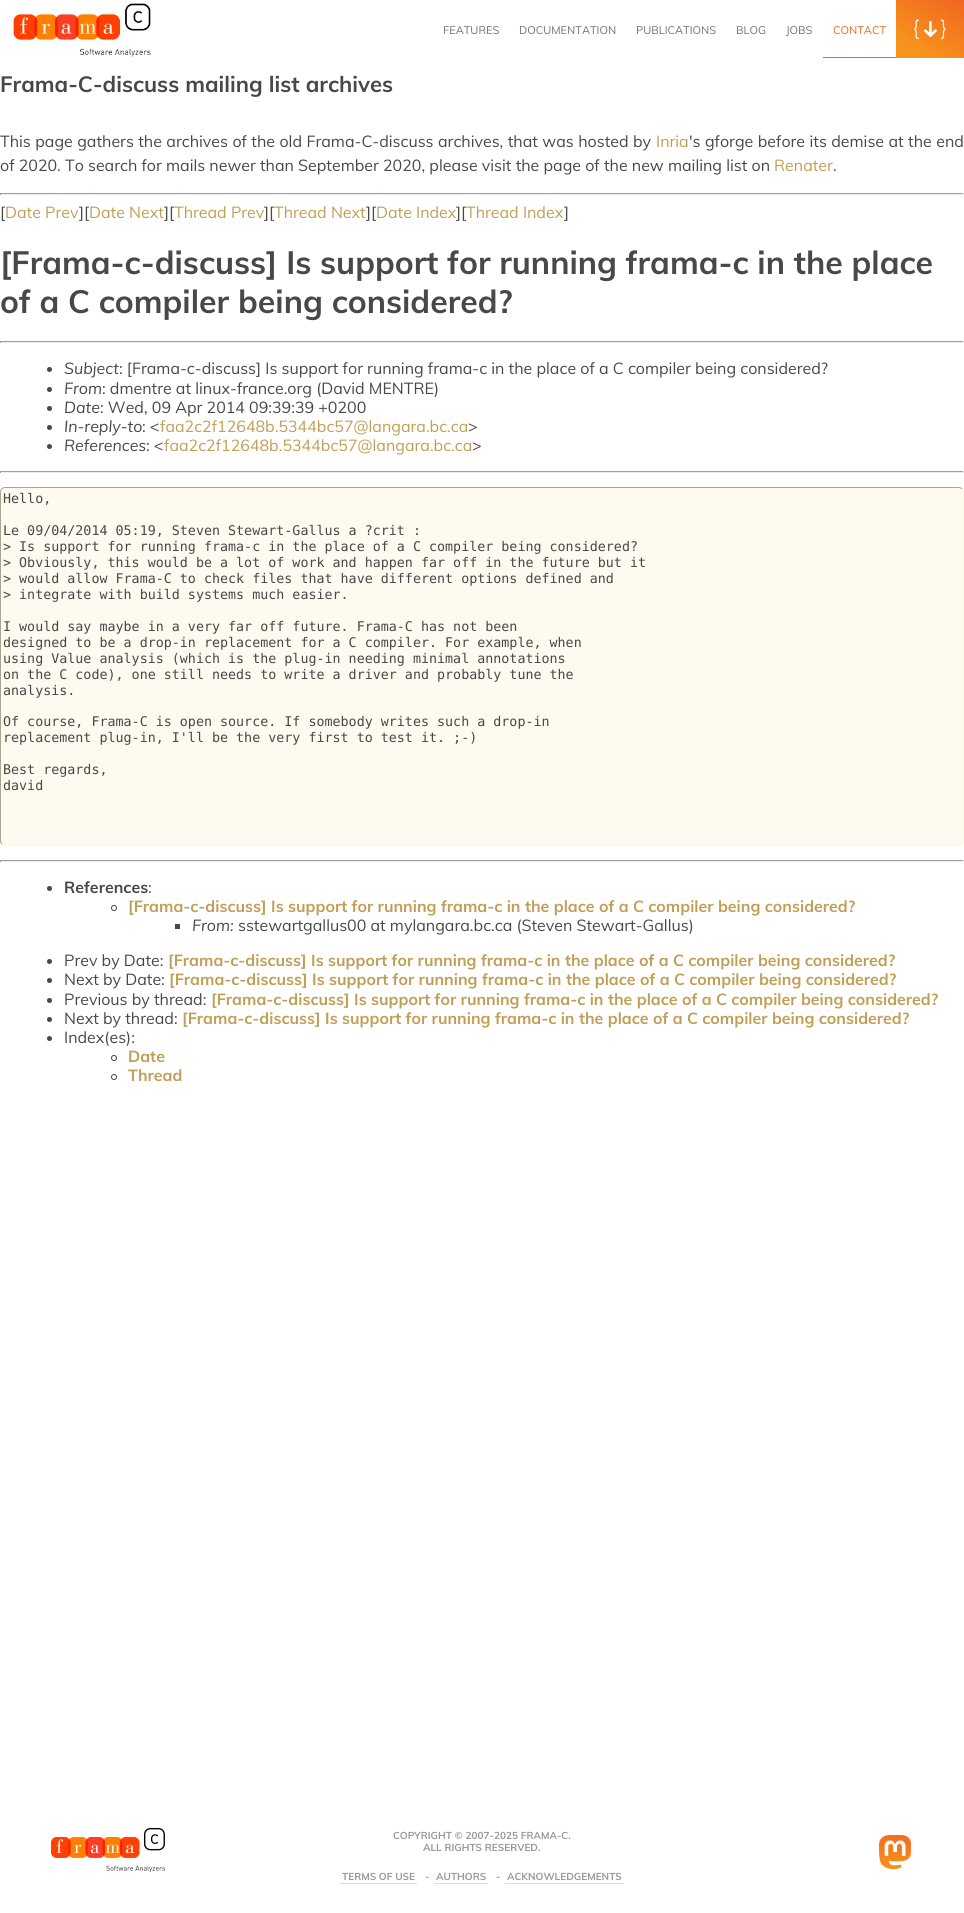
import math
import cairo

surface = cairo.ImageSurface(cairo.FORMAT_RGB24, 964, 1913)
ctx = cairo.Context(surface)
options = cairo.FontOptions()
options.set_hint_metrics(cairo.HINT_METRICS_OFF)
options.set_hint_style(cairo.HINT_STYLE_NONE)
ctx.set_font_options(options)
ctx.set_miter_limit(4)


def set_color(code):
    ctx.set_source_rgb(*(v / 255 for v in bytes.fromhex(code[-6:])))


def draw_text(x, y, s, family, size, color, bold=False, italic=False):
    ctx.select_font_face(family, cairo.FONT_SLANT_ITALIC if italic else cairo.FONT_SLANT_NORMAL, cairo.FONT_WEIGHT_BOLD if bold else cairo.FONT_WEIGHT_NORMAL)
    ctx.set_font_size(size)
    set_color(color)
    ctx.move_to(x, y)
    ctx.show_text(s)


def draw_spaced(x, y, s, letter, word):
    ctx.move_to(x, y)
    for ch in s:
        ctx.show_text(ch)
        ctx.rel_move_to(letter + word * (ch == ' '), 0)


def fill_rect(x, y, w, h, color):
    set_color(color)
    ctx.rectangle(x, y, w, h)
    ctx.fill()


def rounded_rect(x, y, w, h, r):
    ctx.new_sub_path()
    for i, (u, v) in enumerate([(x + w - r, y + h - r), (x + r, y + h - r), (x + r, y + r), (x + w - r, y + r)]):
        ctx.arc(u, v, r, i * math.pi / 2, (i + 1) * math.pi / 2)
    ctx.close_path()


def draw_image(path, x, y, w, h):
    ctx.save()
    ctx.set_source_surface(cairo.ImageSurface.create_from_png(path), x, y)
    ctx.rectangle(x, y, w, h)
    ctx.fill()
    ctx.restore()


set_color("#ffffff")
ctx.paint()
draw_image("assets/img1.png", 13, 3, 138, 54)
draw_text(443, 34, "FEATURES", "Muli", 11, "#717171")
draw_text(519, 34, "DOCUMENTATION", "Muli", 11, "#717171")
draw_text(636, 34, "PUBLICATIONS", "Muli", 11, "#717171")
draw_text(736, 34, "BLOG", "Muli", 11, "#717171")
draw_text(786, 34, "JOBS", "Muli", 11, "#717171")
fill_rect(823, 57, 73, 1, "#f26521")
draw_text(833, 34, "CONTACT", "Muli", 11, "#f26521")
gradient = cairo.LinearGradient(951, -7.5, 909, 65)
gradient.add_color_stop_rgba(0, 0.949, 0.396, 0.129, 1)
gradient.add_color_stop_rgba(0.8, 0.969, 0.576, 0.11, 1)
ctx.set_source(gradient)
ctx.rectangle(896, 0, 68, 58)
ctx.fill()
draw_image("assets/img2.png", 914, 19, 5, 21)
draw_image("assets/img3.png", 924, 21, 13, 16)
draw_image("assets/img4.png", 941, 19, 5, 21)
draw_text(0, 92, "Frama-C-discuss mailing list archives", "Muli", 22, "#484848", bold=True)
ctx.select_font_face("Muli")
ctx.set_font_size(16)
draw_spaced(0, 147, "This page gathers the archives of the old Frama-C-discuss archives, that was hosted by", 0, 0.25)
draw_text(656, 147, "Inria", "Muli", 16, "#c19e56")
set_color("#484848")
draw_spaced(689, 147, "'s gforge before its demise at the end", 0, 0.25)
draw_text(0, 171, "of 2020. To search for mails newer than September 2020, please visit the page of the new mailing list on", "Muli", 16, "#484848")
draw_text(774, 171, "Renater", "Muli", 16, "#c19e56")
draw_text(833, 171, ".", "Muli", 16, "#484848")
fill_rect(0, 193, 964, 1, "#9f9f9f")
fill_rect(963, 193, 1, 2, "#eeeeee")
fill_rect(0, 194, 964, 1, "#eeeeee")
fill_rect(0, 193, 1, 2, "#9f9f9f")
draw_text(0, 218, "[", "Muli", 16, "#484848")
draw_text(5, 218, "Date Prev", "Muli", 16, "#c19e56")
draw_text(79, 218, "][", "Muli", 16, "#484848")
draw_text(89, 218, "Date Next", "Muli", 16, "#c19e56")
draw_text(164, 218, "][", "Muli", 16, "#484848")
draw_text(174, 218, "Thread Prev", "Muli", 16, "#c19e56")
draw_text(264, 218, "][", "Muli", 16, "#484848")
draw_text(274, 218, "Thread Next", "Muli", 16, "#c19e56")
draw_text(366, 218, "][", "Muli", 16, "#484848")
draw_text(376, 218, "Date Index", "Muli", 16, "#c19e56")
draw_text(456, 218, "][", "Muli", 16, "#484848")
draw_text(466, 218, "Thread Index", "Muli", 16, "#c19e56")
draw_text(564, 218, "]", "Muli", 16, "#484848")
draw_text(0, 274, "[Frama-c-discuss] Is support for running frama-c in the place", "Muli", 32, "#484848", bold=True)
draw_text(0, 313, "of a C compiler being considered?", "Muli", 32, "#484848", bold=True)
fill_rect(0, 341, 964, 1, "#9f9f9f")
fill_rect(963, 341, 1, 2, "#eeeeee")
fill_rect(0, 342, 964, 1, "#eeeeee")
fill_rect(0, 341, 1, 2, "#9f9f9f")
set_color("#484848")
ctx.new_path()
ctx.arc(49.5, 369.5, 2.5, 0, 2 * math.pi)
ctx.fill()
draw_text(64, 374, "Subject", "Muli", 16, "#484848", italic=True)
draw_text(119, 374, ": [Frama-c-discuss] Is support for running frama-c in the place of a C compiler being considered?", "Muli", 16, "#484848")
ctx.new_path()
ctx.arc(49.5, 389.5, 2.5, 0, 2 * math.pi)
ctx.fill()
draw_text(64, 394, "From", "Muli", 16, "#484848", italic=True)
draw_text(102, 394, ": dmentre at linux-france.org (David MENTRE)", "Muli", 16, "#484848")
ctx.new_path()
ctx.arc(49.5, 408.5, 2.5, 0, 2 * math.pi)
ctx.fill()
draw_text(64, 413, "Date", "Muli", 16, "#484848", italic=True)
draw_text(100, 413, ": Wed, 09 Apr 2014 09:39:39 +0200", "Muli", 16, "#484848")
ctx.new_path()
ctx.arc(49.5, 427.5, 2.5, 0, 2 * math.pi)
ctx.fill()
draw_text(64, 432, "In-reply-to", "Muli", 16, "#484848", italic=True)
draw_text(142, 432, ": <", "Muli", 16, "#484848")
draw_text(160, 432, "faa2c2f12648b.5344bc57@langara.bc.ca", "Muli", 16, "#c19e56")
draw_text(468, 432, ">", "Muli", 16, "#484848")
ctx.new_path()
ctx.arc(49.5, 446.5, 2.5, 0, 2 * math.pi)
ctx.fill()
draw_text(64, 451, "References", "Muli", 16, "#484848", italic=True)
draw_text(146, 451, ": <", "Muli", 16, "#484848")
draw_text(164, 451, "faa2c2f12648b.5344bc57@langara.bc.ca", "Muli", 16, "#c19e56")
draw_text(472, 451, ">", "Muli", 16, "#484848")
fill_rect(0, 471, 964, 1, "#9f9f9f")
fill_rect(963, 471, 1, 2, "#eeeeee")
fill_rect(0, 472, 964, 1, "#eeeeee")
fill_rect(0, 471, 1, 2, "#9f9f9f")
set_color("#fffaf0")
rounded_rect(0, 487, 964, 359, 5)
ctx.fill()
ctx.new_path()
ctx.move_to(962, 489)
ctx.curve_to(963, 489.5, 963.5, 491, 963.5, 492)
ctx.line_to(963.5, 841)
ctx.curve_to(963.5, 842, 963, 843.5, 962, 844)
ctx.curve_to(961.5, 845, 960, 845.5, 959, 845.5)
ctx.line_to(5, 845.5)
ctx.curve_to(4, 845.5, 2.5, 845, 2, 844)
set_color("#fff8dc")
ctx.set_line_width(1)
ctx.stroke()
ctx.new_path()
ctx.move_to(2, 844)
ctx.curve_to(1, 843.5, 0.5, 842, 0.5, 841)
ctx.line_to(0.5, 492)
ctx.curve_to(0.5, 491, 1, 489.5, 2, 489)
ctx.curve_to(2.5, 488, 4, 487.5, 5, 487.5)
ctx.line_to(959, 487.5)
ctx.curve_to(960, 487.5, 961.5, 488, 962, 489)
set_color("#aaa593")
ctx.stroke()
draw_text(3, 503, "Hello,", "DejaVu Sans Mono", 13.35, "#484848")
draw_text(3, 535, "Le 09/04/2014 05:19, Steven Stewart-Gallus a ?crit :", "DejaVu Sans Mono", 13.35, "#484848")
draw_text(3, 551, "> Is support for running frama-c in the place of a C compiler being considered?", "DejaVu Sans Mono", 13.35, "#484848")
draw_text(3, 567, "> Obviously, this would be a lot of work and happen far off in the future but it", "DejaVu Sans Mono", 13.35, "#484848")
draw_text(3, 583, "> would allow Frama-C to check files that have different options defined and", "DejaVu Sans Mono", 13.35, "#484848")
draw_text(3, 599, "> integrate with build systems much easier.", "DejaVu Sans Mono", 13.35, "#484848")
draw_text(3, 631, "I would say maybe in a very far off future. Frama-C has not been", "DejaVu Sans Mono", 13.35, "#484848")
draw_text(3, 647, "designed to be a drop-in replacement for a C compiler. For example, when", "DejaVu Sans Mono", 13.35, "#484848")
draw_text(3, 663, "using Value analysis (which is the plug-in needing minimal annotations", "DejaVu Sans Mono", 13.35, "#484848")
draw_text(3, 679, "on the C code), one still needs to write a driver and probably tune the", "DejaVu Sans Mono", 13.35, "#484848")
draw_text(3, 695, "analysis.", "DejaVu Sans Mono", 13.35, "#484848")
draw_text(3, 726, "Of course, Frama-C is open source. If somebody writes such a drop-in", "DejaVu Sans Mono", 13.35, "#484848")
draw_text(3, 742, "replacement plug-in, I'll be the very first to test it. ;-)", "DejaVu Sans Mono", 13.35, "#484848")
draw_text(3, 774, "Best regards,", "DejaVu Sans Mono", 13.35, "#484848")
draw_text(3, 790, "david", "DejaVu Sans Mono", 13.35, "#484848")
fill_rect(0, 860, 964, 1, "#9f9f9f")
fill_rect(963, 860, 1, 2, "#eeeeee")
fill_rect(0, 861, 964, 1, "#eeeeee")
fill_rect(0, 860, 1, 2, "#9f9f9f")
set_color("#484848")
ctx.new_path()
ctx.arc(49.5, 888.5, 2.5, 0, 2 * math.pi)
ctx.fill()
draw_text(64, 893, "References", "Muli", 16, "#484848", bold=True)
draw_text(148, 893, ":", "Muli", 16, "#484848")
ctx.new_path()
ctx.arc(114, 908, 2.5, 0, 2 * math.pi)
ctx.stroke()
draw_text(128, 912, "[Frama-c-discuss] Is support for running frama-c in the place of a C compiler being considered?", "Muli", 16, "#c19e56", bold=True)
fill_rect(175, 924, 5, 5, "#484848")
draw_text(192, 931, "From:", "Muli", 16, "#484848", italic=True)
draw_text(238, 931, "sstewartgallus00 at mylangara.bc.ca (Steven Stewart-Gallus)", "Muli", 16, "#484848")
ctx.new_path()
ctx.arc(49.5, 961.5, 2.5, 0, 2 * math.pi)
ctx.fill()
draw_text(64, 966, "Prev by Date:", "Muli", 16, "#484848")
draw_text(168, 966, "[Frama-c-discuss] Is support for running frama-c in the place of a C compiler being considered?", "Muli", 16, "#c19e56", bold=True)
set_color("#484848")
ctx.new_path()
ctx.arc(49.5, 980.5, 2.5, 0, 2 * math.pi)
ctx.fill()
draw_text(64, 985, "Next by Date:", "Muli", 16, "#484848")
draw_text(169, 985, "[Frama-c-discuss] Is support for running frama-c in the place of a C compiler being considered?", "Muli", 16, "#c19e56", bold=True)
set_color("#484848")
ctx.new_path()
ctx.arc(49.5, 1000.5, 2.5, 0, 2 * math.pi)
ctx.fill()
draw_text(64, 1005, "Previous by thread:", "Muli", 16, "#484848")
draw_text(211, 1005, "[Frama-c-discuss] Is support for running frama-c in the place of a C compiler being considered?", "Muli", 16, "#c19e56", bold=True)
set_color("#484848")
ctx.new_path()
ctx.arc(49.5, 1019.5, 2.5, 0, 2 * math.pi)
ctx.fill()
draw_text(64, 1024, "Next by thread:", "Muli", 16, "#484848")
draw_text(182, 1024, "[Frama-c-discuss] Is support for running frama-c in the place of a C compiler being considered?", "Muli", 16, "#c19e56", bold=True)
set_color("#484848")
ctx.new_path()
ctx.arc(49.5, 1038.5, 2.5, 0, 2 * math.pi)
ctx.fill()
draw_text(64, 1043, "Index(es):", "Muli", 16, "#484848")
ctx.new_path()
ctx.arc(114, 1058, 2.5, 0, 2 * math.pi)
ctx.stroke()
draw_text(128, 1062, "Date", "Muli", 16, "#c19e56", bold=True)
ctx.new_path()
ctx.arc(114, 1077, 2.5, 0, 2 * math.pi)
set_color("#484848")
ctx.stroke()
draw_text(128, 1081, "Thread", "Muli", 16, "#c19e56", bold=True)
draw_image("assets/img5.png", 50, 1827, 115, 45)
draw_text(393, 1839, "COPYRIGHT © 2007-2025 FRAMA-C.", "Muli", 10, "#999999", bold=True)
draw_text(423, 1851, "ALL RIGHTS RESERVED.", "Muli", 10, "#999999", bold=True)
draw_image("assets/img6.png", 879, 1835, 32, 34)
fill_rect(340, 1883, 77, 1, "#dddddd")
draw_text(342, 1880, "TERMS OF USE", "Muli", 10, "#999999", bold=True)
draw_text(425, 1880, "-", "Muli", 10, "#999999", bold=True)
fill_rect(434, 1883, 54, 1, "#dddddd")
draw_text(436, 1880, "AUTHORS", "Muli", 10, "#999999", bold=True)
draw_text(496, 1880, "-", "Muli", 10, "#999999", bold=True)
fill_rect(505, 1883, 119, 1, "#dddddd")
draw_text(507, 1880, "ACKNOWLEDGEMENTS", "Muli", 10, "#999999", bold=True)
surface.write_to_png("output.png")
